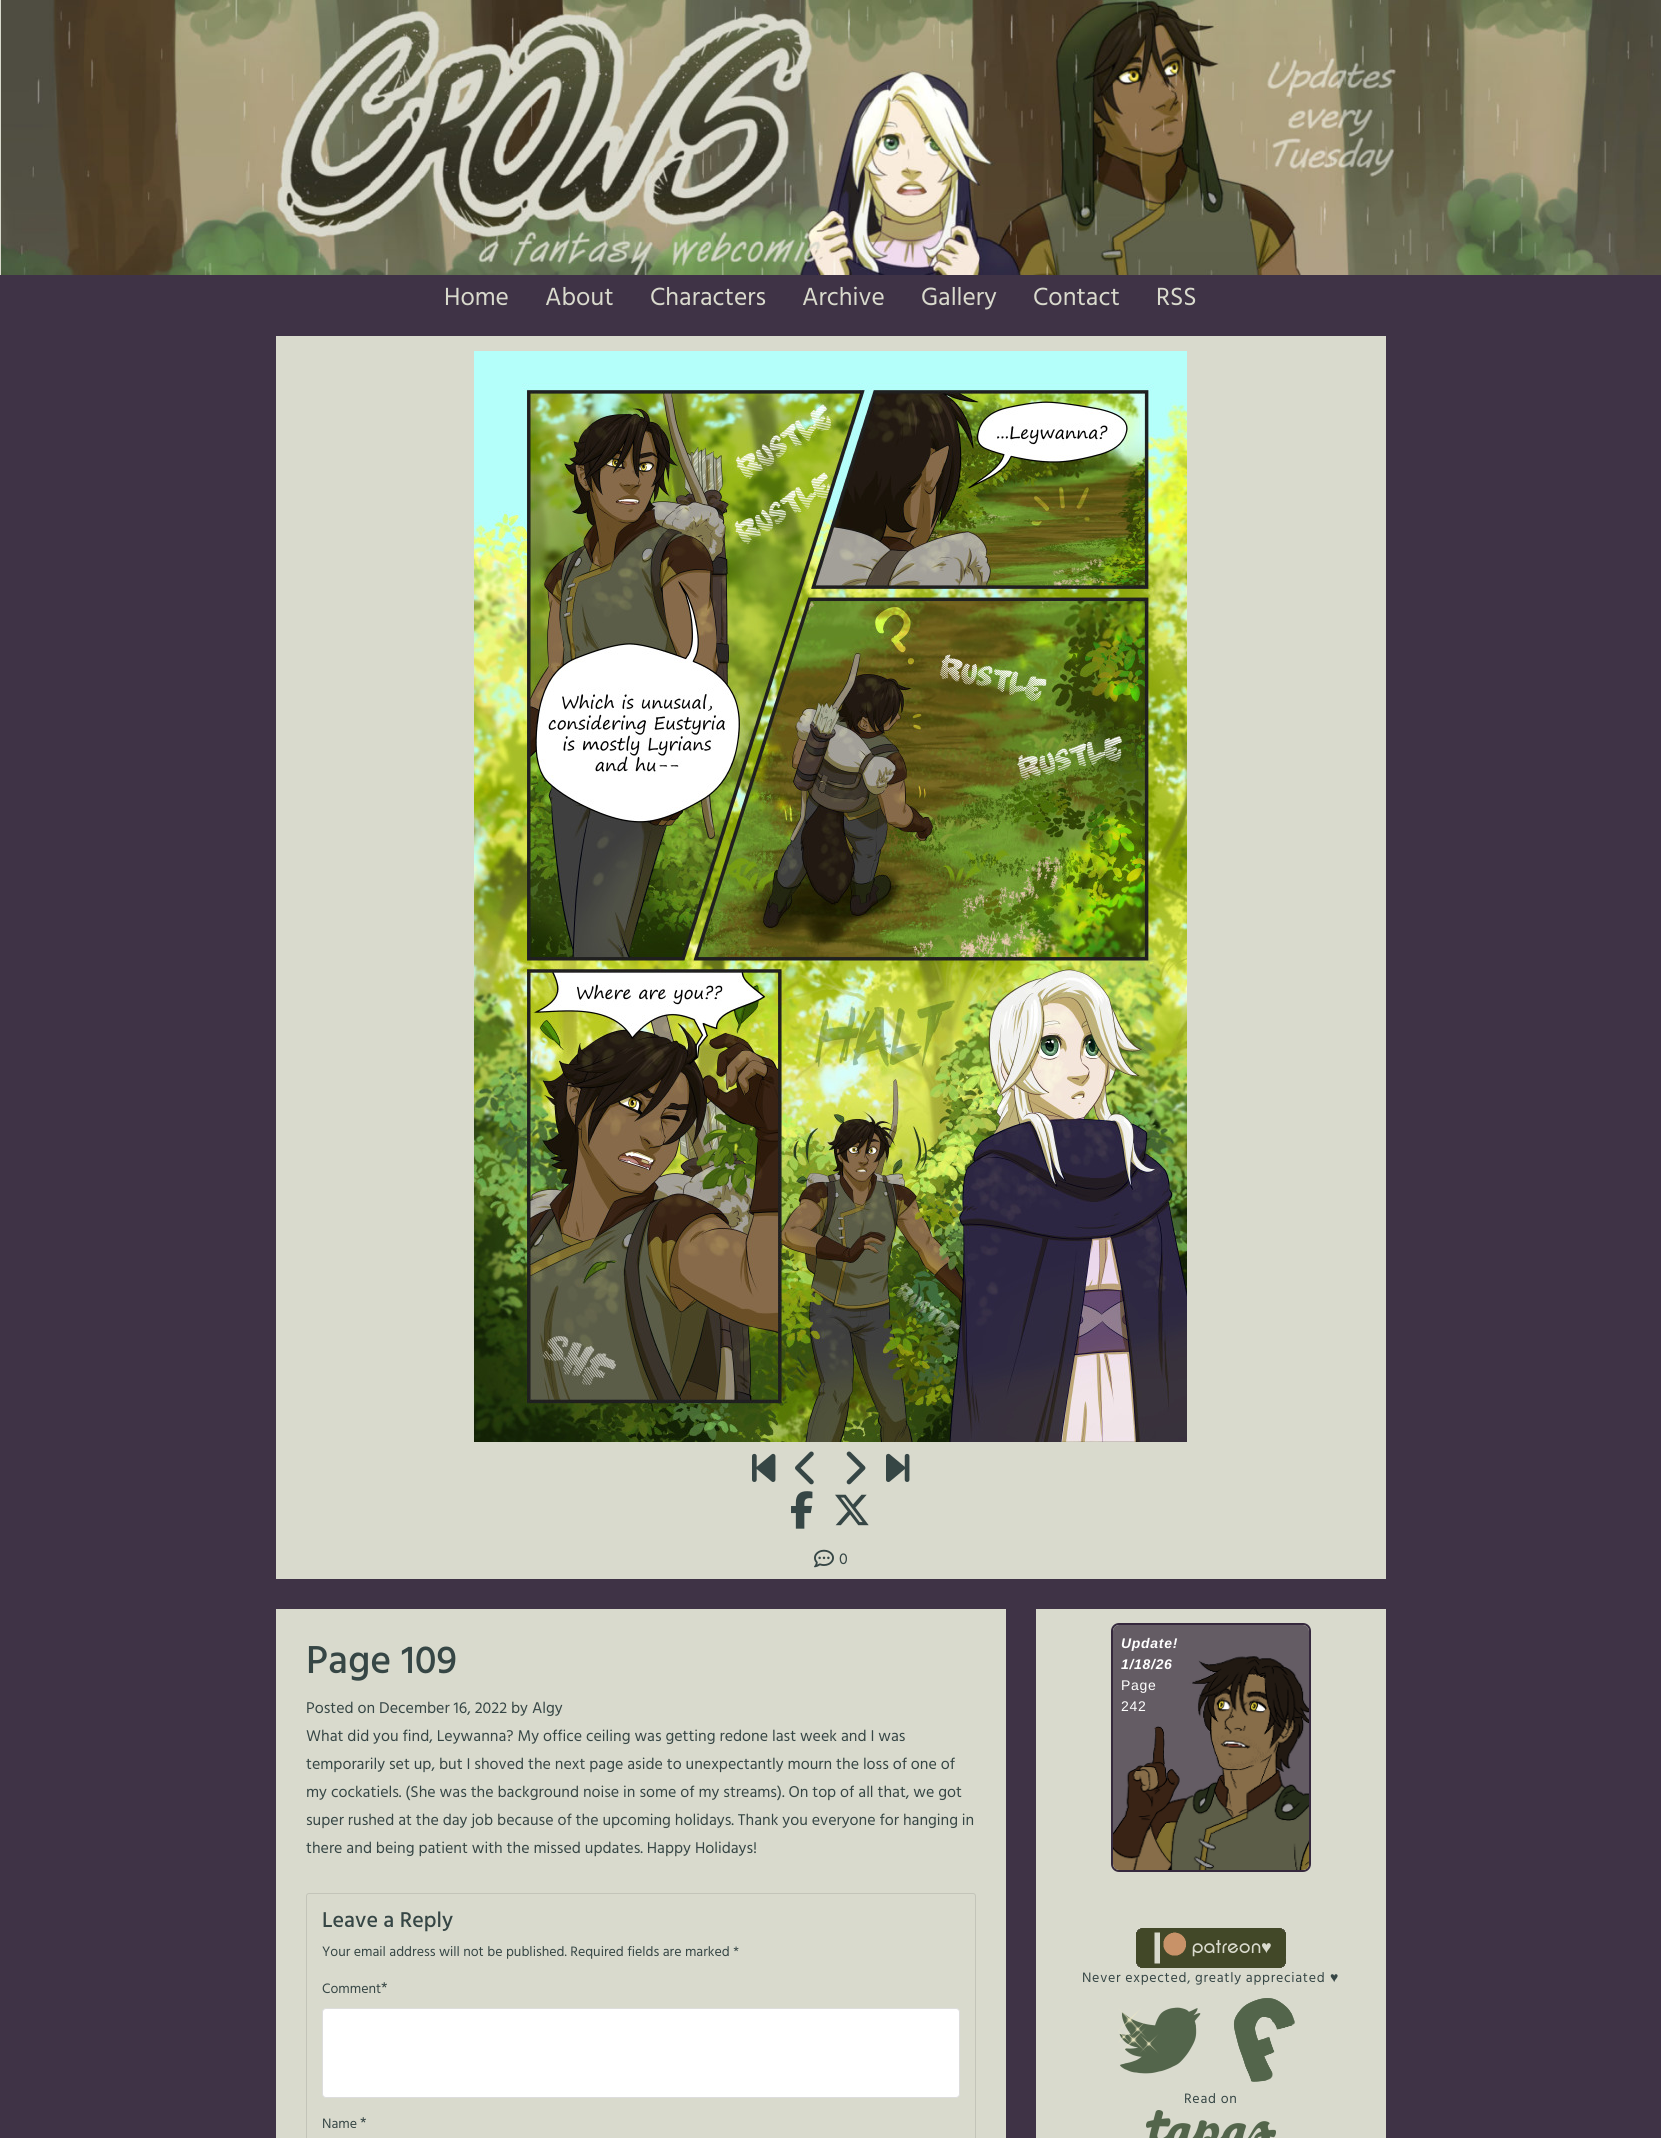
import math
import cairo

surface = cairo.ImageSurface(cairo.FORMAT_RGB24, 1661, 2138)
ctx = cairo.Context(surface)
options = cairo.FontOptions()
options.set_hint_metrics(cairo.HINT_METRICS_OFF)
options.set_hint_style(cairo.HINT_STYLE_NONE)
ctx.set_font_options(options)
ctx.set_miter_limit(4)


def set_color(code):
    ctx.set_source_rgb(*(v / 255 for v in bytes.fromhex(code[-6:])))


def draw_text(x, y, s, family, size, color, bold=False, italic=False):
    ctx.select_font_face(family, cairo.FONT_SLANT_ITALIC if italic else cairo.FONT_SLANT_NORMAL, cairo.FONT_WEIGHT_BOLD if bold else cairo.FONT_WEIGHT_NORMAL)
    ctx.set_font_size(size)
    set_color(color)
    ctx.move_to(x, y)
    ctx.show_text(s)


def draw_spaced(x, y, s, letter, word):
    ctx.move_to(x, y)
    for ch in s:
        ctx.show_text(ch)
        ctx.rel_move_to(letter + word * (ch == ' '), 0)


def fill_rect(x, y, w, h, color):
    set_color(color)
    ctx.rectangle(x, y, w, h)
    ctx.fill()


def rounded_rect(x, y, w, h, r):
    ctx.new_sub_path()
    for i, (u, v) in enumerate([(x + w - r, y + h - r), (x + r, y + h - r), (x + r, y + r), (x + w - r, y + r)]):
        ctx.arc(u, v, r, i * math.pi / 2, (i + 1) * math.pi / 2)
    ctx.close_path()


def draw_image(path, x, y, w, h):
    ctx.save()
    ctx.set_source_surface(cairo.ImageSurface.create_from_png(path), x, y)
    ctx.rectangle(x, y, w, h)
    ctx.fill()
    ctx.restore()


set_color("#3f3346")
ctx.paint()
fill_rect(0, 0, 1, 275, "#d9dacd")
draw_image("assets/img1.png", 1, 0, 1660, 275)
draw_text(444, 305, "Home", "Hind", 25.5, "#d9dacd")
draw_text(545, 305, "About", "Hind", 25.5, "#d9dacd")
draw_text(650, 305, "Characters", "Hind", 25.5, "#d9dacd")
draw_text(802, 305, "Archive", "Hind", 25.5, "#d9dacd")
draw_text(921, 305, "Gallery", "Hind", 25.5, "#d9dacd")
draw_text(1033, 305, "Contact", "Hind", 25.5, "#d9dacd")
draw_text(1156, 305, "RSS", "Hind", 25.5, "#d9dacd")
fill_rect(276, 336, 1110, 1243, "#d9dacd")
draw_image("assets/img2.png", 474, 351, 713, 1091)
draw_image("assets/img3.png", 752, 1453, 24, 29)
draw_image("assets/img4.png", 795, 1451, 19, 34)
draw_image("assets/img5.png", 846, 1451, 20, 34)
draw_image("assets/img6.png", 886, 1453, 24, 29)
draw_image("assets/img7.png", 791, 1491, 22, 38)
draw_image("assets/img8.png", 835, 1494, 34, 32)
draw_image("assets/img9.png", 814, 1549, 20, 19)
draw_text(839, 1564, "0", "Hind", 16, "#364645")
fill_rect(276, 1609, 730, 529, "#d9dacd")
draw_text(306, 1673, "Page 109", "Hind Medium", 40, "#364645")
draw_text(306, 1713, "Posted on December 16, 2022 by Algy", "Hind", 16, "#364645")
draw_text(306, 1741, "What did you find, Leywanna? My office ceiling was getting redone last week and I was", "Hind", 16, "#364645")
draw_text(306, 1769, "temporarily set up, but I shoved the next page aside to unexpectantly mourn the loss of one of", "Hind", 16, "#364645")
draw_text(306, 1797, "my cockatiels. (She was the background noise in some of my streams). On top of all that, we got", "Hind", 16, "#364645")
draw_text(306, 1825, "super rushed at the day job because of the upcoming holidays. Thank you everyone for hanging in", "Hind", 16, "#364645")
draw_text(306, 1853, "there and being patient with the missed updates. Happy Holidays!", "Hind", 16, "#364645")
rounded_rect(306.5, 1893.5, 669, 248, 2.5)
set_color("#c3c4b9")
ctx.set_line_width(1)
ctx.stroke()
draw_text(322, 1927, "Leave a Reply", "Hind Medium", 22, "#364645")
draw_text(322, 1956, "Your email address will not be published. Required fields are marked *", "Hind", 14, "#364645")
draw_text(322, 1993, "Comment", "Hind", 14, "#364645")
draw_text(381, 1993, "*", "Hind", 16, "#364645")
set_color("#ffffff")
rounded_rect(322.5, 2008.5, 637, 89, 3.5)
ctx.fill_preserve()
set_color("#dddddd")
ctx.stroke()
draw_text(322, 2128, "Name", "Hind", 14, "#364645")
draw_text(360, 2128, "*", "Hind", 16, "#364645")
fill_rect(1036, 1609, 350, 529, "#d9dacd")
rounded_rect(1112, 1624, 198, 247, 7)
set_color("#35283d")
ctx.set_line_width(2)
ctx.stroke()
draw_image("assets/img10.png", 1113, 1625, 196, 245)
ctx.select_font_face("Liberation Sans", cairo.FONT_SLANT_ITALIC, cairo.FONT_WEIGHT_BOLD)
ctx.set_font_size(14)
set_color("#ffffff")
draw_spaced(1121, 1648, "Update!", 0.7, 0)
draw_spaced(1121, 1669, "1/18/26", 0.7, 0)
ctx.select_font_face("Liberation Sans")
draw_spaced(1121, 1690, "Page", 0.7, 0)
draw_spaced(1121, 1711, "242", 0.7, 0)
draw_image("assets/img11.png", 1136, 1928, 150, 40)
ctx.select_font_face("Hind")
set_color("#364645")
draw_spaced(1082, 1982, "Never expected, greatly appreciated", 0.7, 0)
ctx.select_font_face("Liberation Sans")
draw_spaced(1330, 1982, "♥", 0.7, 0)
draw_image("assets/img12.png", 1118, 2007, 83, 67)
draw_image("assets/img13.png", 1233, 1998, 62, 84)
ctx.select_font_face("Hind")
draw_spaced(1184, 2103, "Read on", 0.7, 0)
draw_image("assets/img14.png", 1146, 2110, 130, 28)
surface.write_to_png("output.png")
